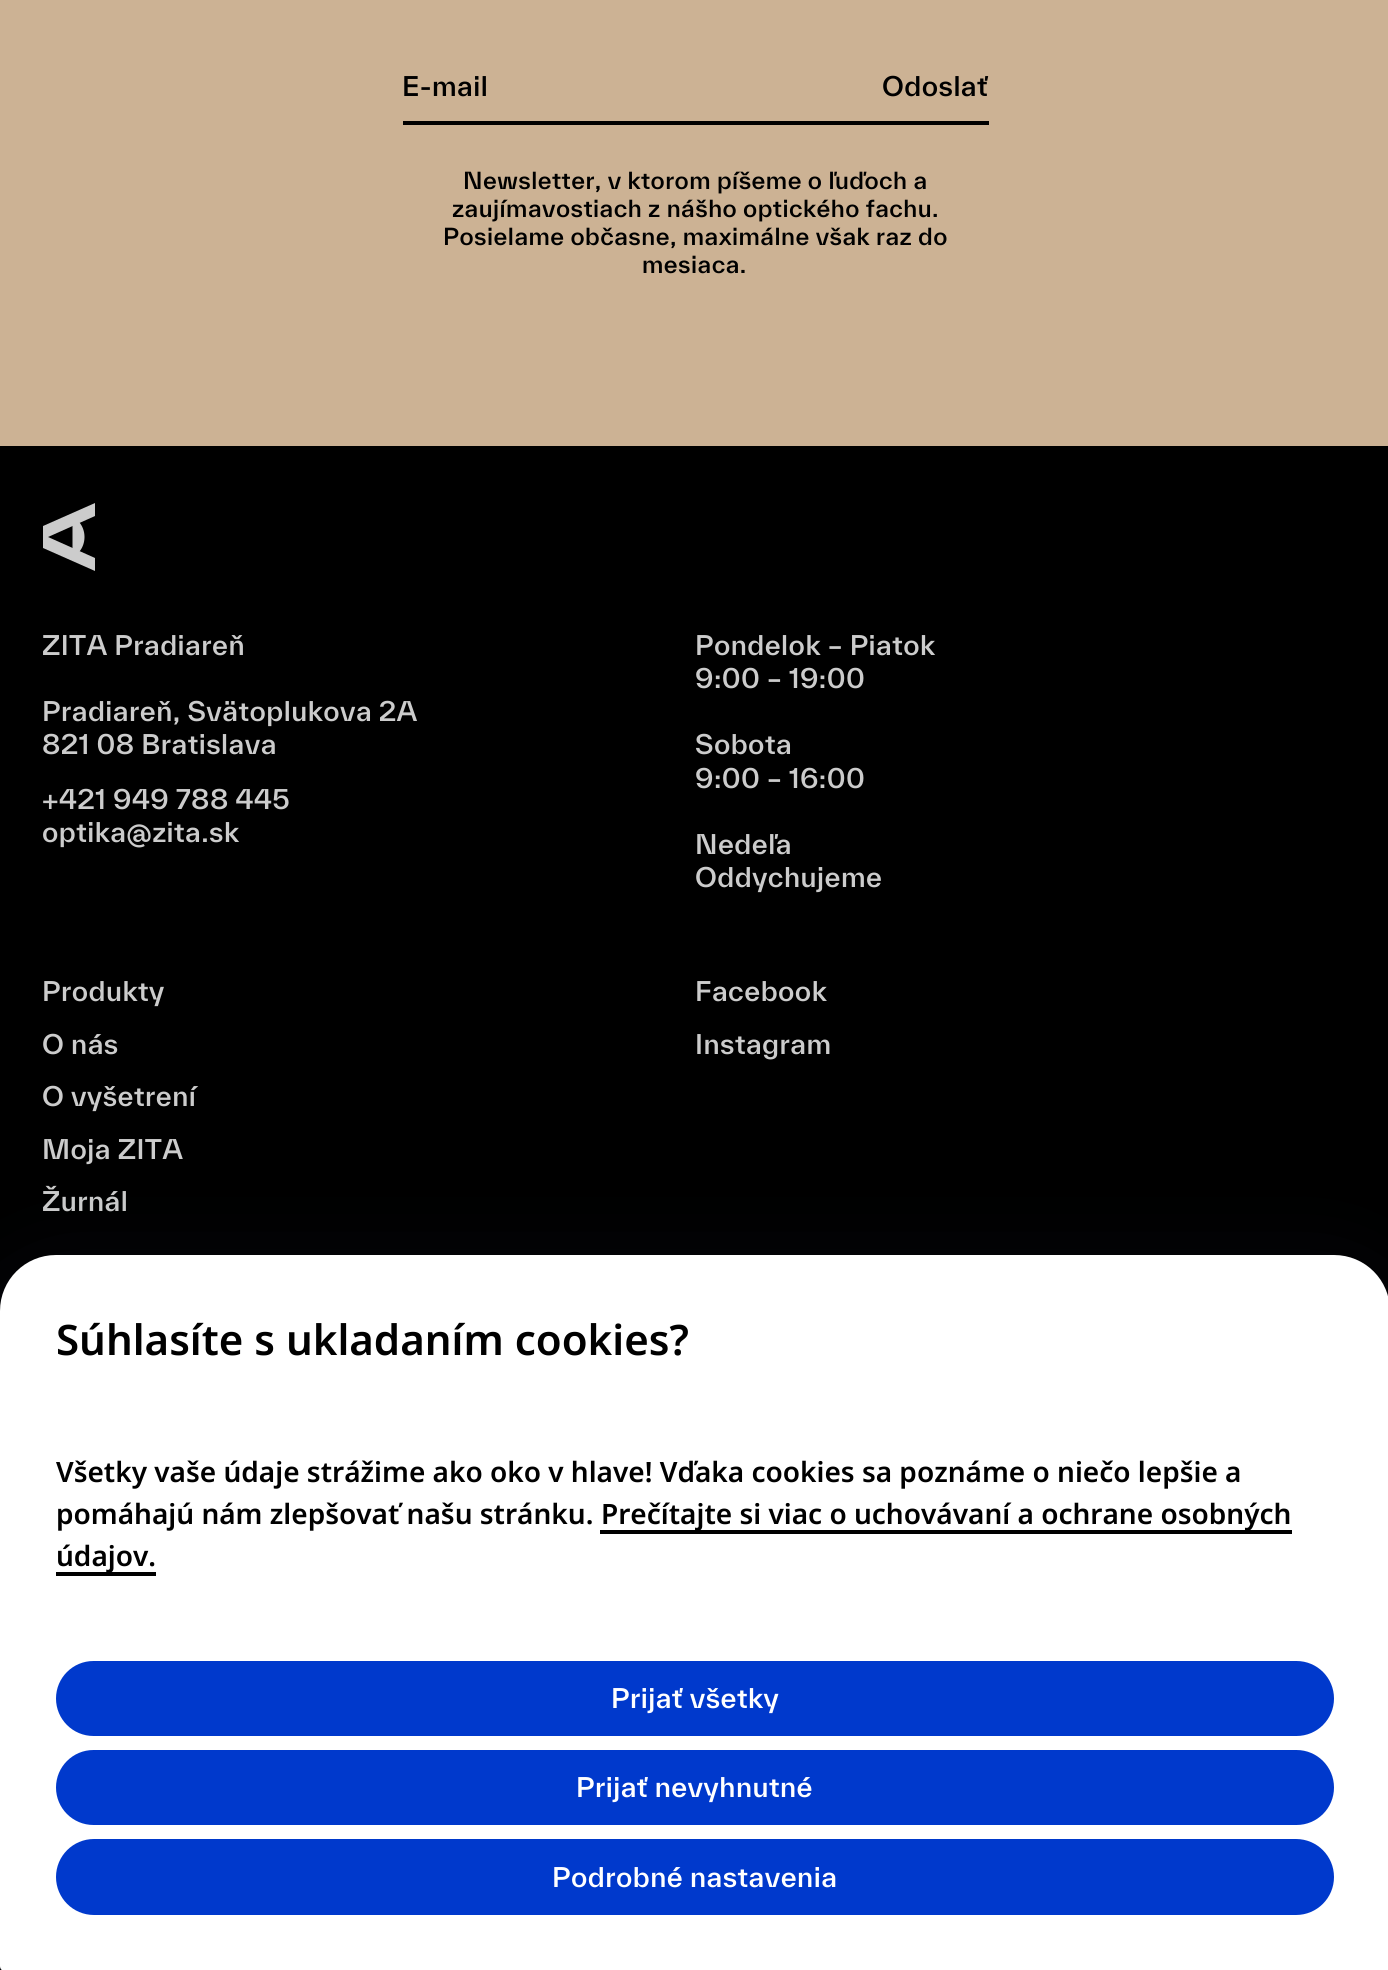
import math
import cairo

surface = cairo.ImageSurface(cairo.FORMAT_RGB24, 1388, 1970)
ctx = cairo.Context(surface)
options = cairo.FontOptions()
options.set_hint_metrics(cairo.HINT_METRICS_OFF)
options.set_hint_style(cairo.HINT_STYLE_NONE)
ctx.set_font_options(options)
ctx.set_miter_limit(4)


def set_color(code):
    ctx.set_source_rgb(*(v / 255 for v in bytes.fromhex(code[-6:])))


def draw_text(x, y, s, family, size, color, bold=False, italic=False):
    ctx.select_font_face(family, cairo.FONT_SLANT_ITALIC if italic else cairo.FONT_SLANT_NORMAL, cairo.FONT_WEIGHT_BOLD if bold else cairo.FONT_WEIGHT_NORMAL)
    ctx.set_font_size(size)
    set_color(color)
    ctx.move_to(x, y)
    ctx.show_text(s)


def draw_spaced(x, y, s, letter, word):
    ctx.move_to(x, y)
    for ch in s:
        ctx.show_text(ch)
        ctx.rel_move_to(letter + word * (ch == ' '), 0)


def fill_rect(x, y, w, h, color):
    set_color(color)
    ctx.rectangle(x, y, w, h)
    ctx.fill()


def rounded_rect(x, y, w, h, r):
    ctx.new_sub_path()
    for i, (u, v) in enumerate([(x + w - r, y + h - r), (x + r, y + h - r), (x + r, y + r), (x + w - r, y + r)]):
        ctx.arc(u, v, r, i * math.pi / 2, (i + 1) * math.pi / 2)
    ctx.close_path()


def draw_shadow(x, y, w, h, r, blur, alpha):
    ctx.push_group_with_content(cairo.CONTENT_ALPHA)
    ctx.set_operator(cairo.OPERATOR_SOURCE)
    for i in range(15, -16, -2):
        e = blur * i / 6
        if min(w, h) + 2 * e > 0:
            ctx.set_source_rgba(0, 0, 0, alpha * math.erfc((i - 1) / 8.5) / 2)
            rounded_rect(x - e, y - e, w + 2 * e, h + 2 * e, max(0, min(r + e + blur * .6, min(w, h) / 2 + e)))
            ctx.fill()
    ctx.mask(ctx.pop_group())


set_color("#ccb294")
ctx.paint()
fill_rect(403, 121, 586, 4, "#000000")
ctx.select_font_face("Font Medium")
ctx.set_font_size(26.25)
draw_spaced(402, 96, "E-mail", 0.45, 0)
draw_spaced(882, 96, "Odoslať", 0.45, 0)
ctx.set_font_size(22.75)
draw_spaced(463, 189, "Newsletter, v ktorom píšeme o ľuďoch a", 0.45, 0)
draw_spaced(452, 217, "zaujímavostiach z nášho optického fachu.", 0.45, 0)
draw_spaced(443, 245, "Posielame občasne, maximálne však raz do", 0.45, 0)
draw_spaced(642, 273, "mesiaca.", 0.45, 0)
fill_rect(0, 446, 1388, 865, "#000000")
set_color("#cccccc")
ctx.new_path()
ctx.move_to(95, 558)
ctx.line_to(48, 537)
ctx.line_to(95, 516)
ctx.line_to(95, 503)
ctx.line_to(43, 526)
ctx.line_to(43, 548)
ctx.line_to(95, 571)
ctx.close_path()
ctx.fill()
ctx.new_path()
ctx.move_to(69, 557)
ctx.curve_to(77, 557, 84.5, 548, 84.5, 537)
ctx.curve_to(84.5, 526, 77, 517, 69, 517)
ctx.line_to(72.5, 525.5)
ctx.line_to(72.5, 548.5)
ctx.close_path()
ctx.fill()
ctx.set_font_size(26.25)
draw_spaced(42, 655, "ZITA Pradiareň", 0.45, 0)
draw_spaced(42, 721, "Pradiareň, Svätoplukova 2A", 0.45, 0)
draw_spaced(42, 754, "821 08 Bratislava", 0.45, 0)
draw_spaced(42, 809, "+421 949 788 445", 0.45, 0)
draw_spaced(42, 842, "optika@zita.sk", 0.45, 0)
draw_spaced(695, 655, "Pondelok – Piatok", 0.45, 0)
draw_spaced(695, 688, "9:00 – 19:00", 0.45, 0)
draw_spaced(695, 754, "Sobota", 0.45, 0)
draw_spaced(695, 788, "9:00 – 16:00", 0.45, 0)
draw_spaced(695, 854, "Nedeľa", 0.45, 0)
draw_spaced(695, 887, "Oddychujeme", 0.45, 0)
draw_spaced(42, 1001, "Produkty", 0.45, 0)
draw_spaced(42, 1054, "O nás", 0.45, 0)
draw_spaced(42, 1106, "O vyšetrení", 0.45, 0)
draw_spaced(42, 1159, "Moja ZITA", 0.45, 0)
draw_spaced(42, 1211, "Žurnál", 0.45, 0)
draw_spaced(695, 1001, "Facebook", 0.45, 0)
draw_spaced(695, 1054, "Instagram", 0.45, 0)
fill_rect(0, 1966, 2, 4, "#000000")
set_color("#1b213a")
draw_shadow(4, 1293, 1382, 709, 53, 52.5, 0.4)
set_color("#ffffff")
ctx.new_path()
ctx.move_to(56, 1255)
ctx.line_to(1334, 1255)
ctx.curve_to(1365, 1255, 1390, 1280, 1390, 1311)
ctx.line_to(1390, 1966)
ctx.curve_to(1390, 1969, 1388, 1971, 1385, 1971)
ctx.line_to(5, 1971)
ctx.curve_to(2, 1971, 0, 1969, 0, 1966)
ctx.line_to(0, 1311)
ctx.curve_to(0, 1280, 25, 1255, 56, 1255)
ctx.close_path()
ctx.fill()
draw_text(56, 1355, "Súhlasíte s ukladaním cookies?", "Noto Sans SemiBold", 42, "#000000")
draw_text(56, 1482, "Všetky vaše údaje strážime ako oko v hlave! Vďaka cookies sa poznáme o niečo lepšie a", "Noto Sans SemiBold", 28, "#000000")
draw_text(56, 1524, "pomáhajú nám zlepšovať našu stránku.", "Noto Sans SemiBold", 28, "#000000")
fill_rect(600, 1530, 692, 4, "#000000")
draw_text(601, 1524, "Prečítajte si viac o uchovávaní a ochrane osobných", "Noto Sans SemiBold", 28, "#000000")
fill_rect(56, 1572, 100, 4, "#000000")
draw_text(56, 1566, "údajov.", "Noto Sans SemiBold", 28, "#000000")
set_color("#0039cc")
rounded_rect(56, 1661, 1278, 75, 37.5)
ctx.fill()
ctx.select_font_face("Font Medium")
ctx.set_font_size(26.25)
set_color("#ffffff")
draw_spaced(611, 1708, "Prijať všetky", 0.45, 0)
set_color("#0039cc")
rounded_rect(56, 1750, 1278, 75, 37.5)
ctx.fill()
set_color("#ffffff")
draw_spaced(576, 1797, "Prijať nevyhnutné", 0.45, 0)
set_color("#0039cc")
rounded_rect(56, 1839, 1278, 76, 38)
ctx.fill()
set_color("#ffffff")
draw_spaced(552, 1887, "Podrobné nastavenia", 0.45, 0)
surface.write_to_png("output.png")
